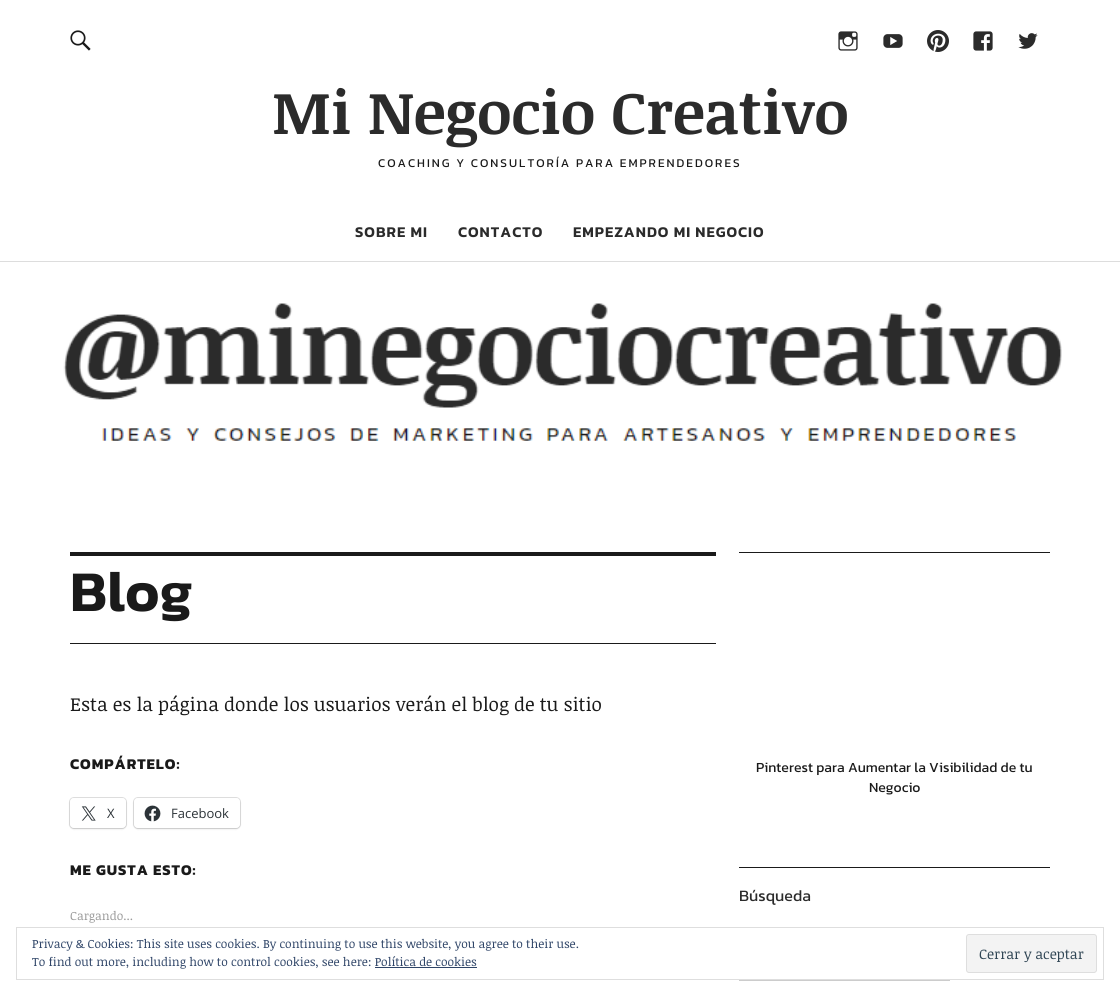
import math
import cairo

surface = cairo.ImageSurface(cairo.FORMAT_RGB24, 1120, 996)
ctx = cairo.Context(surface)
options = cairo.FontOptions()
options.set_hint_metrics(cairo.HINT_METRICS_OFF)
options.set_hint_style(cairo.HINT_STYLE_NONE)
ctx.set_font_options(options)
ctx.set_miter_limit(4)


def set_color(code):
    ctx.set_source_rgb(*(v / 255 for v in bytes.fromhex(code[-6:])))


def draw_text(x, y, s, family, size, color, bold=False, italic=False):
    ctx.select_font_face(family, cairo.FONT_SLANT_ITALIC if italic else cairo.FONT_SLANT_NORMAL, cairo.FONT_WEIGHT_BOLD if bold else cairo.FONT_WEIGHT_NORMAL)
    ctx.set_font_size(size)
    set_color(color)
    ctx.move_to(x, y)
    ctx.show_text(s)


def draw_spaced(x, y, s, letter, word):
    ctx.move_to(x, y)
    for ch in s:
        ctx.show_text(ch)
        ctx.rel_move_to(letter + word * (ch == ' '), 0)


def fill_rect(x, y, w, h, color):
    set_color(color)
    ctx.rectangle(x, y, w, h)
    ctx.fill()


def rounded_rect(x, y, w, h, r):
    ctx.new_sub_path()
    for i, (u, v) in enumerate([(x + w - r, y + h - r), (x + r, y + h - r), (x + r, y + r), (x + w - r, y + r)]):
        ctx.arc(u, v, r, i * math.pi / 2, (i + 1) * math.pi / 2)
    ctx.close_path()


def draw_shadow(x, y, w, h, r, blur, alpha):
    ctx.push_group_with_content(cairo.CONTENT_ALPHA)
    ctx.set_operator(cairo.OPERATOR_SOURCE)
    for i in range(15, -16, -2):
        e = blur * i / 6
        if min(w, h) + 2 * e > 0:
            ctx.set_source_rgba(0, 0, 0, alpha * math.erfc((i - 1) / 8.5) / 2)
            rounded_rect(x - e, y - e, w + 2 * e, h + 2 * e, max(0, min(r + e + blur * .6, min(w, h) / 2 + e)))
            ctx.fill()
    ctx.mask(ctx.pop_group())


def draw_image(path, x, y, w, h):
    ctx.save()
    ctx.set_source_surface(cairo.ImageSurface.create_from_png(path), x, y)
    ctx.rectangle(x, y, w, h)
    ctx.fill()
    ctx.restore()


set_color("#ffffff")
ctx.paint()
fill_rect(0, 261, 1120, 1, "#dddddd")
draw_image("assets/img1.png", 70, 30, 21, 21)
draw_image("assets/img2.png", 838, 31, 20, 20)
draw_image("assets/img3.png", 883, 34, 20, 14)
draw_image("assets/img4.png", 927, 30, 22, 22)
draw_image("assets/img5.png", 973, 31, 20, 20)
draw_image("assets/img6.png", 1018, 33, 20, 16)
draw_text(272, 134, "Mi Negocio Creativo", "Noticia Text", 60, "#2b2b2b", bold=True)
ctx.select_font_face("Kanit")
ctx.set_font_size(12)
set_color("#1a1a1a")
draw_spaced(378, 167, "COACHING Y CONSULTORÍA PARA EMPRENDEDORES", 2, 0)
ctx.select_font_face("Kanit SemiBold")
ctx.set_font_size(15)
set_color("#2b2b2b")
draw_spaced(355, 237, "SOBRE MI", 1, 0)
draw_spaced(458, 237, "CONTACTO", 1, 0)
draw_spaced(573, 237, "EMPEZANDO MI NEGOCIO", 1, 0)
draw_image("assets/img7.png", 63, 303, 999, 138)
fill_rect(70, 552, 646, 4, "#1a1a1a")
fill_rect(70, 643, 646, 1, "#1a1a1a")
draw_text(70, 611, "Blog", "Kanit SemiBold", 58, "#1a1a1a")
draw_text(70, 711, "Esta es la página donde los usuarios verán el blog de tu sitio", "Noticia Text", 19, "#1a1a1a")
ctx.select_font_face("Kanit", cairo.FONT_SLANT_NORMAL, cairo.FONT_WEIGHT_BOLD)
ctx.set_font_size(15)
draw_spaced(70, 769, "COMPÁRTELO:", 1, 0)
rounded_rect(69.5, 797.5, 57, 31, 4.5)
set_color("#e0e0e0")
ctx.set_line_width(1)
ctx.stroke()
set_color("#000000")
draw_shadow(70, 799, 56, 30, 4, 1, 0.12)
set_color("#ffffff")
rounded_rect(70, 798, 56, 30, 4)
ctx.fill()
draw_image("assets/img8.png", 81, 806, 15, 15)
draw_text(107, 818, "X", "Open Sans", 13, "#2c3338")
rounded_rect(133.5, 797.5, 107, 31, 4.5)
set_color("#e0e0e0")
ctx.stroke()
set_color("#000000")
draw_shadow(134, 799, 106, 30, 4, 1, 0.12)
set_color("#ffffff")
rounded_rect(134, 798, 106, 30, 4)
ctx.fill()
draw_image("assets/img9.png", 144, 805, 17, 17)
draw_text(171, 818, "Facebook", "Open Sans", 13, "#2c3338")
ctx.select_font_face("Kanit", cairo.FONT_SLANT_NORMAL, cairo.FONT_WEIGHT_BOLD)
ctx.set_font_size(15)
set_color("#1a1a1a")
draw_spaced(70, 875, "ME GUSTA ESTO:", 1, 0)
draw_text(70, 920, "Cargando...", "Noticia Text", 12, "#999999")
fill_rect(739, 552, 311, 1, "#1a1a1a")
draw_text(756, 772, "Pinterest para Aumentar la Visibilidad de tu", "Kanit", 14, "#1a1a1a")
draw_text(869, 792, "Negocio", "Kanit", 14, "#1a1a1a")
fill_rect(739, 867, 311, 1, "#1a1a1a")
draw_text(739, 901, "Búsqueda", "Kanit", 16, "#2b2b2b")
ctx.rectangle(739.5, 931.5, 210, 49)
set_color("#cccccc")
ctx.stroke()
fill_rect(739, 931, 211, 48, "#ffffff")
ctx.rectangle(16.5, 927.5, 1087, 52)
set_color("#dedede")
ctx.stroke()
draw_text(32, 948, "Privacy & Cookies: This site uses cookies. By continuing to use this website, you agree to their use.", "Noticia Text", 12, "#2e4467")
draw_text(32, 966, "To find out more, including how to control cookies, see here: Política de cookies", "Noticia Text", 12, "#2e4467")
set_color("#f3f3f3")
rounded_rect(966.5, 934.5, 130, 38, 2.5)
ctx.fill_preserve()
set_color("#dedede")
ctx.stroke()
draw_text(979, 959, "Cerrar y aceptar", "Noticia Text", 14, "#2e4453")
fill_rect(375, 967, 102, 1, "#2e4467")
surface.write_to_png("output.png")
